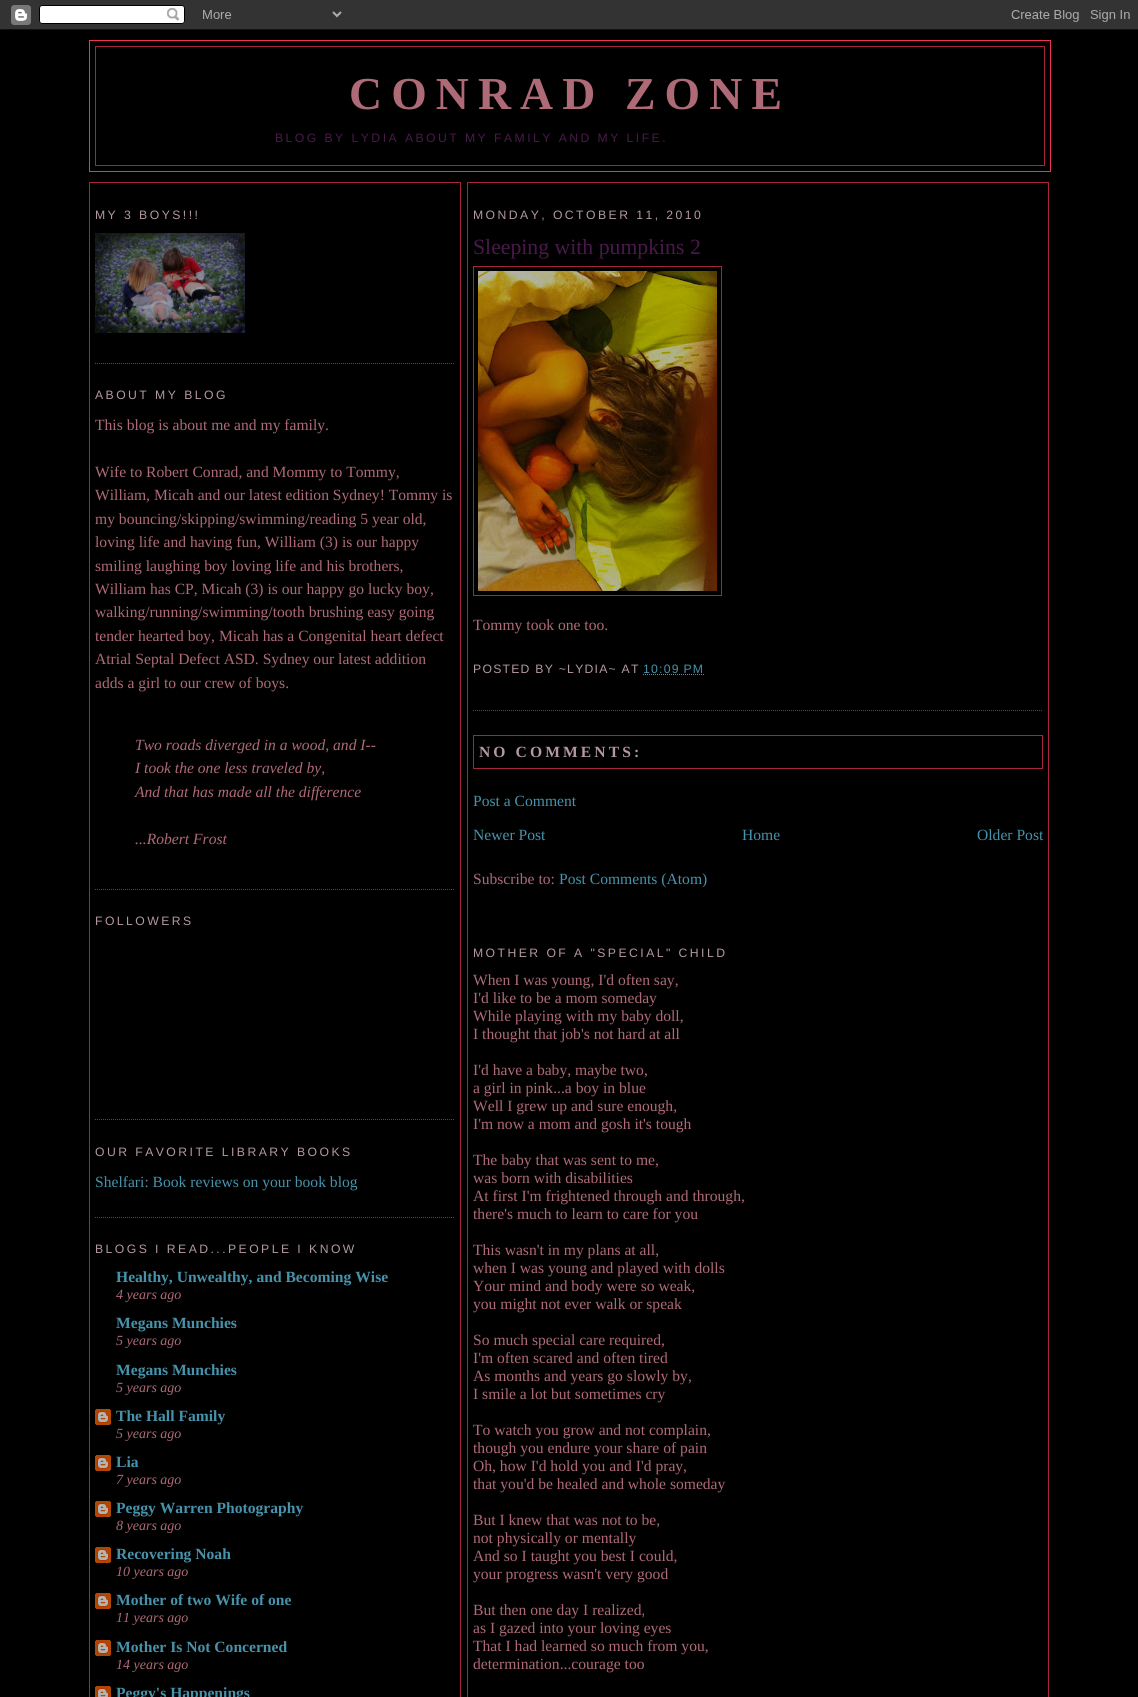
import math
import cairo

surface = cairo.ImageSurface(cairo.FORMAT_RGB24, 1138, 1697)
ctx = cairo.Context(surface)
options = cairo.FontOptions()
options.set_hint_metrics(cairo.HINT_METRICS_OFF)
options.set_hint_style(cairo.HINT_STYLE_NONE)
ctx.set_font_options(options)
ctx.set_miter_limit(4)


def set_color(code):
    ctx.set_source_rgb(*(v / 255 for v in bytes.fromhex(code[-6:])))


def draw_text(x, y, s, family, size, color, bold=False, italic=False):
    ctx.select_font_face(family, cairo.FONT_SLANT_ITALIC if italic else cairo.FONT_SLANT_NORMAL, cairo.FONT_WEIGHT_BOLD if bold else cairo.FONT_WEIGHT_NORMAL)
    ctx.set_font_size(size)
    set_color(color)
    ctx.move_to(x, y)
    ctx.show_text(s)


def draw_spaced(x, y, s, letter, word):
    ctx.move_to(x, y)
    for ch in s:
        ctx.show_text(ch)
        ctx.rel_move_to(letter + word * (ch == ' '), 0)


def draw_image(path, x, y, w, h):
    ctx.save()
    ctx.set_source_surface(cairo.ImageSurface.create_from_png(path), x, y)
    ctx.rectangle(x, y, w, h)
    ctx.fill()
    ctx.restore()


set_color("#000000")
ctx.paint()
draw_image("assets/img1.png", 0, 0, 1138, 30)
ctx.rectangle(89.5, 40.5, 961, 131)
set_color("#ef3457")
ctx.set_line_width(1)
ctx.stroke()
ctx.rectangle(95.5, 46.5, 949, 119)
set_color("#a7243d")
ctx.stroke()
ctx.select_font_face("Liberation Serif", cairo.FONT_SLANT_NORMAL, cairo.FONT_WEIGHT_BOLD)
ctx.set_font_size(45.75)
set_color("#af6a77")
draw_spaced(349, 109, "CONRAD ZONE", 9.1, 0)
ctx.select_font_face("Liberation Sans")
ctx.set_font_size(12.2)
set_color("#4a194a")
draw_spaced(275, 142, "BLOG BY LYDIA ABOUT MY FAMILY AND MY LIFE.", 2.45, 0)
ctx.rectangle(89.5, 182.5, 371, 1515)
set_color("#a7243d")
ctx.stroke()
ctx.new_path()
ctx.move_to(95, 363.5)
ctx.line_to(455, 363.5)
ctx.set_dash([1, 1])
ctx.stroke()
set_color("#b3999e")
draw_spaced(95, 219, "MY 3 BOYS!!!", 2.45, 0)
draw_image("assets/img2.png", 95, 233, 150, 100)
ctx.new_path()
ctx.move_to(95, 889.5)
ctx.line_to(455, 889.5)
set_color("#a7243d")
ctx.stroke()
set_color("#b3999e")
draw_spaced(95, 399, "ABOUT MY BLOG", 2.45, 0)
draw_text(95, 430, "This blog is about me and my family.", "Liberation Serif", 15.6, "#af6a77")
draw_text(95, 477, "Wife to Robert Conrad, and Mommy to Tommy,", "Liberation Serif", 15.6, "#af6a77")
draw_text(95, 500, "William, Micah and our latest edition Sydney! Tommy is", "Liberation Serif", 15.6, "#af6a77")
draw_text(95, 524, "my bouncing/skipping/swimming/reading 5 year old,", "Liberation Serif", 15.6, "#af6a77")
draw_text(95, 547, "loving life and having fun, William (3) is our happy", "Liberation Serif", 15.6, "#af6a77")
draw_text(95, 571, "smiling laughing boy loving life and his brothers,", "Liberation Serif", 15.6, "#af6a77")
draw_text(95, 594, "William has CP, Micah (3) is our happy go lucky boy,", "Liberation Serif", 15.6, "#af6a77")
draw_text(95, 617, "walking/running/swimming/tooth brushing easy going", "Liberation Serif", 15.6, "#af6a77")
draw_text(95, 641, "tender hearted boy, Micah has a Congenital heart defect", "Liberation Serif", 15.6, "#af6a77")
draw_text(95, 664, "Atrial Septal Defect ASD. Sydney our latest addition", "Liberation Serif", 15.6, "#af6a77")
draw_text(95, 688, "adds a girl to our crew of boys.", "Liberation Serif", 15.6, "#af6a77")
draw_text(135, 750, "Two roads diverged in a wood, and I--", "Liberation Serif", 15.6, "#af6a77", italic=True)
draw_text(135, 773, "I took the one less traveled by,", "Liberation Serif", 15.6, "#af6a77", italic=True)
draw_text(135, 797, "And that has made all the difference", "Liberation Serif", 15.6, "#af6a77", italic=True)
draw_text(135, 844, "...Robert Frost", "Liberation Serif", 15.6, "#af6a77", italic=True)
ctx.new_path()
ctx.move_to(95, 1119.5)
ctx.line_to(455, 1119.5)
set_color("#a7243d")
ctx.stroke()
ctx.select_font_face("Liberation Sans")
ctx.set_font_size(12.2)
set_color("#b3999e")
draw_spaced(95, 925, "FOLLOWERS", 2.45, 0)
ctx.new_path()
ctx.move_to(95, 1217.5)
ctx.line_to(455, 1217.5)
set_color("#a7243d")
ctx.stroke()
set_color("#b3999e")
draw_spaced(95, 1156, "OUR FAVORITE LIBRARY BOOKS", 2.45, 0)
draw_text(95, 1187, "Shelfari: Book reviews on your book blog", "Liberation Serif", 15.6, "#4793ab")
ctx.select_font_face("Liberation Sans")
ctx.set_font_size(12.2)
set_color("#b3999e")
draw_spaced(95, 1253, "BLOGS I READ...PEOPLE I KNOW", 2.45, 0)
draw_text(116, 1282, "Healthy, Unwealthy, and Becoming Wise", "Liberation Serif", 15.6, "#4793ab", bold=True)
draw_text(116, 1299, "4 years ago", "Liberation Serif", 14, "#af6a77", italic=True)
draw_text(116, 1328, "Megans Munchies", "Liberation Serif", 15.6, "#4793ab", bold=True)
draw_text(116, 1345, "5 years ago", "Liberation Serif", 14, "#af6a77", italic=True)
draw_text(116, 1375, "Megans Munchies", "Liberation Serif", 15.6, "#4793ab", bold=True)
draw_text(116, 1392, "5 years ago", "Liberation Serif", 14, "#af6a77", italic=True)
draw_image("assets/img3.png", 95, 1409, 16, 16)
draw_text(116, 1421, "The Hall Family", "Liberation Serif", 15.6, "#4793ab", bold=True)
draw_text(116, 1438, "5 years ago", "Liberation Serif", 14, "#af6a77", italic=True)
draw_image("assets/img3.png", 95, 1455, 16, 16)
draw_text(116, 1467, "Lia", "Liberation Serif", 15.6, "#4793ab", bold=True)
draw_text(116, 1484, "7 years ago", "Liberation Serif", 14, "#af6a77", italic=True)
draw_image("assets/img3.png", 95, 1501, 16, 16)
draw_text(116, 1513, "Peggy Warren Photography", "Liberation Serif", 15.6, "#4793ab", bold=True)
draw_text(116, 1530, "8 years ago", "Liberation Serif", 14, "#af6a77", italic=True)
draw_image("assets/img3.png", 95, 1547, 16, 16)
draw_text(116, 1559, "Recovering Noah", "Liberation Serif", 15.6, "#4793ab", bold=True)
draw_text(116, 1576, "10 years ago", "Liberation Serif", 14, "#af6a77", italic=True)
draw_image("assets/img3.png", 95, 1593, 16, 16)
draw_text(116, 1605, "Mother of two Wife of one", "Liberation Serif", 15.6, "#4793ab", bold=True)
draw_text(116, 1622, "11 years ago", "Liberation Serif", 14, "#af6a77", italic=True)
draw_image("assets/img3.png", 95, 1640, 16, 16)
draw_text(116, 1652, "Mother Is Not Concerned", "Liberation Serif", 15.6, "#4793ab", bold=True)
draw_text(116, 1669, "14 years ago", "Liberation Serif", 14, "#af6a77", italic=True)
draw_image("assets/img4.png", 95, 1686, 16, 11)
draw_text(116, 1698, "Peggy's Happenings", "Liberation Serif", 15.6, "#4793ab", bold=True)
ctx.rectangle(467.5, 182.5, 581, 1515)
set_color("#a7243d")
ctx.set_dash([])
ctx.stroke()
ctx.select_font_face("Liberation Sans")
ctx.set_font_size(12.2)
set_color("#b3999e")
draw_spaced(473, 219, "MONDAY, OCTOBER 11, 2010", 2.45, 0)
ctx.new_path()
ctx.move_to(473, 710.5)
ctx.line_to(1043, 710.5)
set_color("#a7243d")
ctx.set_dash([1, 1])
ctx.stroke()
draw_text(473, 254, "Sleeping with pumpkins 2", "Liberation Serif", 21.75, "#4a194a")
ctx.rectangle(473.5, 266.5, 248, 329)
set_color("#a7243d")
ctx.set_dash([])
ctx.stroke()
draw_image("assets/img5.png", 478, 271, 239, 320)
draw_text(473, 630, "Tommy took one too.", "Liberation Serif", 15.6, "#af6a77")
ctx.select_font_face("Liberation Sans")
ctx.set_font_size(12.2)
set_color("#b3999e")
draw_spaced(473, 673, "POSTED BY ~LYDIA~ AT", 1.25, 0)
set_color("#4793ab")
draw_spaced(643, 673, "10:09 PM", 1.25, 0)
ctx.new_path()
ctx.move_to(643, 674.5)
ctx.line_to(704, 674.5)
ctx.set_dash([1, 1])
ctx.stroke()
ctx.rectangle(473.5, 735.5, 569, 33)
set_color("#a7243d")
ctx.set_dash([])
ctx.stroke()
ctx.select_font_face("Liberation Serif", cairo.FONT_SLANT_NORMAL, cairo.FONT_WEIGHT_BOLD)
ctx.set_font_size(15.6)
set_color("#b3999e")
draw_spaced(479, 757, "NO COMMENTS:", 3.1, 0)
draw_text(473, 806, "Post a Comment", "Liberation Serif", 15.6, "#4793ab")
draw_text(473, 840, "Newer Post", "Liberation Serif", 15.6, "#4793ab")
draw_text(742, 840, "Home", "Liberation Serif", 15.6, "#4793ab")
draw_text(977, 840, "Older Post", "Liberation Serif", 15.6, "#4793ab")
draw_text(473, 884, "Subscribe to:", "Liberation Serif", 15.6, "#af6a77")
draw_text(559, 884, "Post Comments (Atom)", "Liberation Serif", 15.6, "#4793ab")
ctx.select_font_face("Liberation Sans")
ctx.set_font_size(12.2)
set_color("#b3999e")
draw_spaced(473, 957, "MOTHER OF A \"SPECIAL\" CHILD", 2.45, 0)
draw_text(473, 985, "When I was young, I'd often say,", "Liberation Serif", 15.6, "#af6a77")
draw_text(473, 1003, "I'd like to be a mom someday", "Liberation Serif", 15.6, "#af6a77")
draw_text(473, 1021, "While playing with my baby doll,", "Liberation Serif", 15.6, "#af6a77")
draw_text(473, 1039, "I thought that job's not hard at all", "Liberation Serif", 15.6, "#af6a77")
draw_text(473, 1075, "I'd have a baby, maybe two,", "Liberation Serif", 15.6, "#af6a77")
draw_text(473, 1093, "a girl in pink...a boy in blue", "Liberation Serif", 15.6, "#af6a77")
draw_text(473, 1111, "Well I grew up and sure enough,", "Liberation Serif", 15.6, "#af6a77")
draw_text(473, 1129, "I'm now a mom and gosh it's tough", "Liberation Serif", 15.6, "#af6a77")
draw_text(473, 1165, "The baby that was sent to me,", "Liberation Serif", 15.6, "#af6a77")
draw_text(473, 1183, "was born with disabilities", "Liberation Serif", 15.6, "#af6a77")
draw_text(473, 1201, "At first I'm frightened through and through,", "Liberation Serif", 15.6, "#af6a77")
draw_text(473, 1219, "there's much to learn to care for you", "Liberation Serif", 15.6, "#af6a77")
draw_text(473, 1255, "This wasn't in my plans at all,", "Liberation Serif", 15.6, "#af6a77")
draw_text(473, 1273, "when I was young and played with dolls", "Liberation Serif", 15.6, "#af6a77")
draw_text(473, 1291, "Your mind and body were so weak,", "Liberation Serif", 15.6, "#af6a77")
draw_text(473, 1309, "you might not ever walk or speak", "Liberation Serif", 15.6, "#af6a77")
draw_text(473, 1345, "So much special care required,", "Liberation Serif", 15.6, "#af6a77")
draw_text(473, 1363, "I'm often scared and often tired", "Liberation Serif", 15.6, "#af6a77")
draw_text(473, 1381, "As months and years go slowly by,", "Liberation Serif", 15.6, "#af6a77")
draw_text(473, 1399, "I smile a lot but sometimes cry", "Liberation Serif", 15.6, "#af6a77")
draw_text(473, 1435, "To watch you grow and not complain,", "Liberation Serif", 15.6, "#af6a77")
draw_text(473, 1453, "though you endure your share of pain", "Liberation Serif", 15.6, "#af6a77")
draw_text(473, 1471, "Oh, how I'd hold you and I'd pray,", "Liberation Serif", 15.6, "#af6a77")
draw_text(473, 1489, "that you'd be healed and whole someday", "Liberation Serif", 15.6, "#af6a77")
draw_text(473, 1525, "But I knew that was not to be,", "Liberation Serif", 15.6, "#af6a77")
draw_text(473, 1543, "not physically or mentally", "Liberation Serif", 15.6, "#af6a77")
draw_text(473, 1561, "And so I taught you best I could,", "Liberation Serif", 15.6, "#af6a77")
draw_text(473, 1579, "your progress wasn't very good", "Liberation Serif", 15.6, "#af6a77")
draw_text(473, 1615, "But then one day I realized,", "Liberation Serif", 15.6, "#af6a77")
draw_text(473, 1633, "as I gazed into your loving eyes", "Liberation Serif", 15.6, "#af6a77")
draw_text(473, 1651, "That I had learned so much from you,", "Liberation Serif", 15.6, "#af6a77")
draw_text(473, 1669, "determination...courage too", "Liberation Serif", 15.6, "#af6a77")
surface.write_to_png("output.png")
